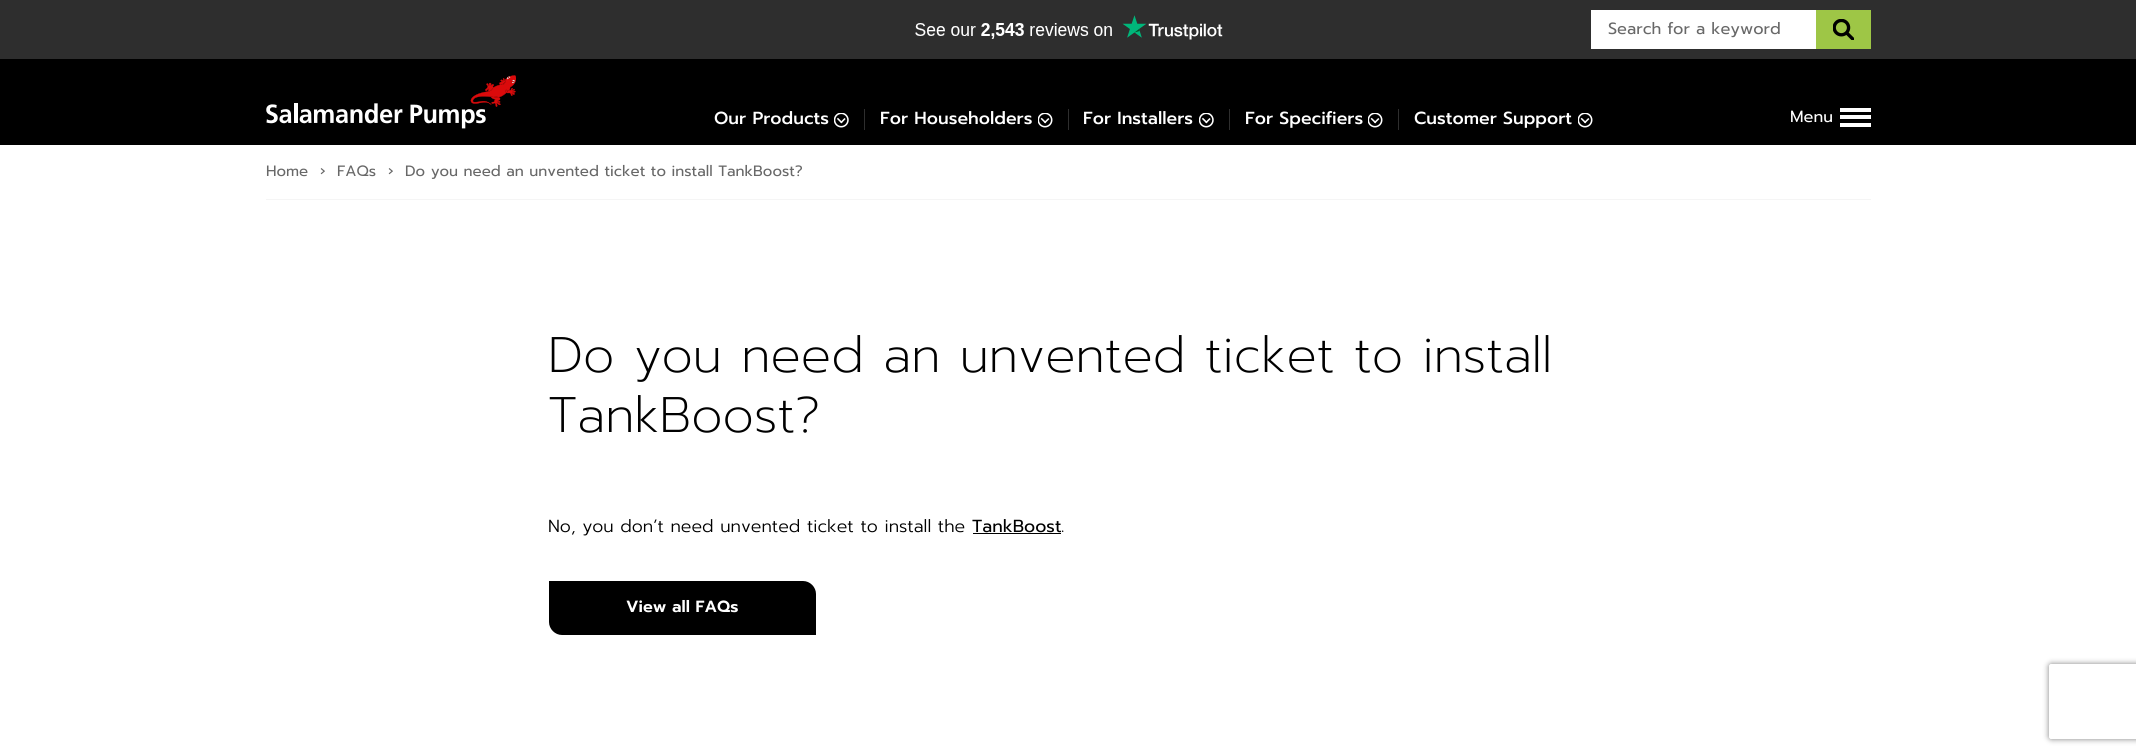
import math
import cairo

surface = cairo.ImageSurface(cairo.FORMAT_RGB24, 2136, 756)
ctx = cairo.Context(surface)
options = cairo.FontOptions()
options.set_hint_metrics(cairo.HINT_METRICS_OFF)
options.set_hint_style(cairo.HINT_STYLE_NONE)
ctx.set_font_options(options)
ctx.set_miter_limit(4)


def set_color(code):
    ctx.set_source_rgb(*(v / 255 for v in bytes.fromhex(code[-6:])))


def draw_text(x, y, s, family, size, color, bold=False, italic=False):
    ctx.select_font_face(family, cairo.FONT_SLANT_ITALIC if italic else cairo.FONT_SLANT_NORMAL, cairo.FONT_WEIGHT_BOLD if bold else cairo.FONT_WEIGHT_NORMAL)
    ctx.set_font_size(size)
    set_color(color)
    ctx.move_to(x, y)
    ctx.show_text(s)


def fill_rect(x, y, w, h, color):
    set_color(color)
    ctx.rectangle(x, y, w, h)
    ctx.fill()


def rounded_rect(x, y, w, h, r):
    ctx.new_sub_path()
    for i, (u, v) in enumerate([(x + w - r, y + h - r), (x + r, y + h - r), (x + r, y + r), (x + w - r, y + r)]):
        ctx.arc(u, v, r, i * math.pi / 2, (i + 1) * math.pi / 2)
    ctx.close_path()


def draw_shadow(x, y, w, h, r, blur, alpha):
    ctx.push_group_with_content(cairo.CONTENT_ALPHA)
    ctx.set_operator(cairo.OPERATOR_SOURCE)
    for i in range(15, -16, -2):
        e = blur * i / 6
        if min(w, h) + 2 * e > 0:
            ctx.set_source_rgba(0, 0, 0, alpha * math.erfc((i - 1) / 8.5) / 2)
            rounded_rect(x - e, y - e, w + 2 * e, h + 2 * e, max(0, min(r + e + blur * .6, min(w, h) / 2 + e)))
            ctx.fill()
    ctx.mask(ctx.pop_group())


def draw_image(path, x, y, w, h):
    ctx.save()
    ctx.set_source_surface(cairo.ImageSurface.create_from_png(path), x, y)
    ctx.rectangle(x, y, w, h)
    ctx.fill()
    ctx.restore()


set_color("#ffffff")
ctx.paint()
fill_rect(0, 0, 2136, 59, "#2e2e2e")
draw_image("assets/img1.png", 915, 15, 308, 25)
fill_rect(1591, 10, 225, 39, "#ffffff")
draw_text(1608, 34, "Search for a keyword", "Prompt", 16.25, "#686868")
fill_rect(1816, 10, 55, 39, "#9ec646")
draw_image("assets/img2.png", 1833, 19, 21, 21)
fill_rect(0, 59, 2136, 86, "#000000")
draw_image("assets/img3.png", 266, 75, 250, 54)
fill_rect(864, 109, 1, 21, "#2e2e2e")
draw_text(714, 124, "Our Products", "Prompt Medium", 17.5, "#ffffff")
draw_image("assets/img4.png", 834, 113, 15, 15)
fill_rect(1068, 109, 1, 21, "#2e2e2e")
draw_text(880, 124, "For Householders", "Prompt Medium", 17.5, "#ffffff")
draw_image("assets/img5.png", 1038, 113, 15, 15)
fill_rect(1229, 109, 1, 21, "#2e2e2e")
draw_text(1083, 124, "For Installers", "Prompt Medium", 17.5, "#ffffff")
draw_image("assets/img4.png", 1199, 113, 15, 15)
fill_rect(1398, 109, 1, 21, "#2e2e2e")
draw_text(1245, 124, "For Specifiers", "Prompt Medium", 17.5, "#ffffff")
draw_image("assets/img5.png", 1368, 113, 15, 15)
draw_text(1414, 124, "Customer Support", "Prompt Medium", 17.5, "#ffffff")
draw_image("assets/img5.png", 1578, 113, 15, 15)
draw_text(1790, 122, "Menu", "Prompt", 16.25, "#ffffff")
fill_rect(1840, 108, 31, 4, "#ffffff")
fill_rect(1840, 115, 31, 4, "#ffffff")
fill_rect(1840, 123, 31, 4, "#ffffff")
fill_rect(266, 199, 1605, 1, "#f5f5f5")
draw_text(266, 176, "Home", "Prompt", 15, "#686868")
draw_text(320, 176, "›", "Prompt", 15, "#686868")
draw_text(337, 176, "FAQs", "Prompt", 15, "#686868")
draw_text(388, 176, "›", "Prompt", 15, "#686868")
draw_text(405, 176, "Do you need an unvented ticket to install TankBoost?", "Prompt", 15, "#686868")
draw_text(548, 372, "Do you need an unvented ticket to install", "Prompt ExtraLight", 50, "#000000")
draw_text(548, 432, "TankBoost?", "Prompt ExtraLight", 50, "#000000")
draw_text(548, 532, "No, you don’t need unvented ticket to install the", "Prompt Light", 17.5, "#000000")
draw_text(972, 532, "TankBoost", "Prompt", 17.5, "#000000")
fill_rect(973, 533, 88, 1, "#000000")
draw_text(1061, 532, ".", "Prompt Light", 17.5, "#000000")
ctx.new_path()
ctx.move_to(549, 581)
ctx.line_to(803, 581)
ctx.curve_to(810, 581, 816, 587, 816, 594)
ctx.line_to(816, 635)
ctx.line_to(562, 635)
ctx.curve_to(555, 635, 549, 629, 549, 622)
ctx.close_path()
ctx.fill()
draw_text(626, 612, "View all FAQs", "Prompt SemiBold", 16.25, "#ffffff")
ctx.save()
ctx.set_fill_rule(cairo.FILL_RULE_EVEN_ODD)
ctx.new_path()
ctx.move_to(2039, 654)
ctx.line_to(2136, 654)
ctx.line_to(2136, 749)
ctx.line_to(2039, 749)
ctx.close_path()
ctx.move_to(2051.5, 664)
ctx.line_to(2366.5, 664)
ctx.curve_to(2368, 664, 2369, 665, 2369, 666.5)
ctx.line_to(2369, 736.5)
ctx.curve_to(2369, 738, 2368, 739, 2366.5, 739)
ctx.line_to(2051.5, 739)
ctx.curve_to(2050, 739, 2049, 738, 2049, 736.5)
ctx.line_to(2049, 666.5)
ctx.curve_to(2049, 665, 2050, 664, 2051.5, 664)
ctx.close_path()
ctx.clip()
set_color("#808080")
draw_shadow(2049, 664, 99, 75, 2.5, 3, 1)
ctx.restore()
surface.write_to_png("output.png")
